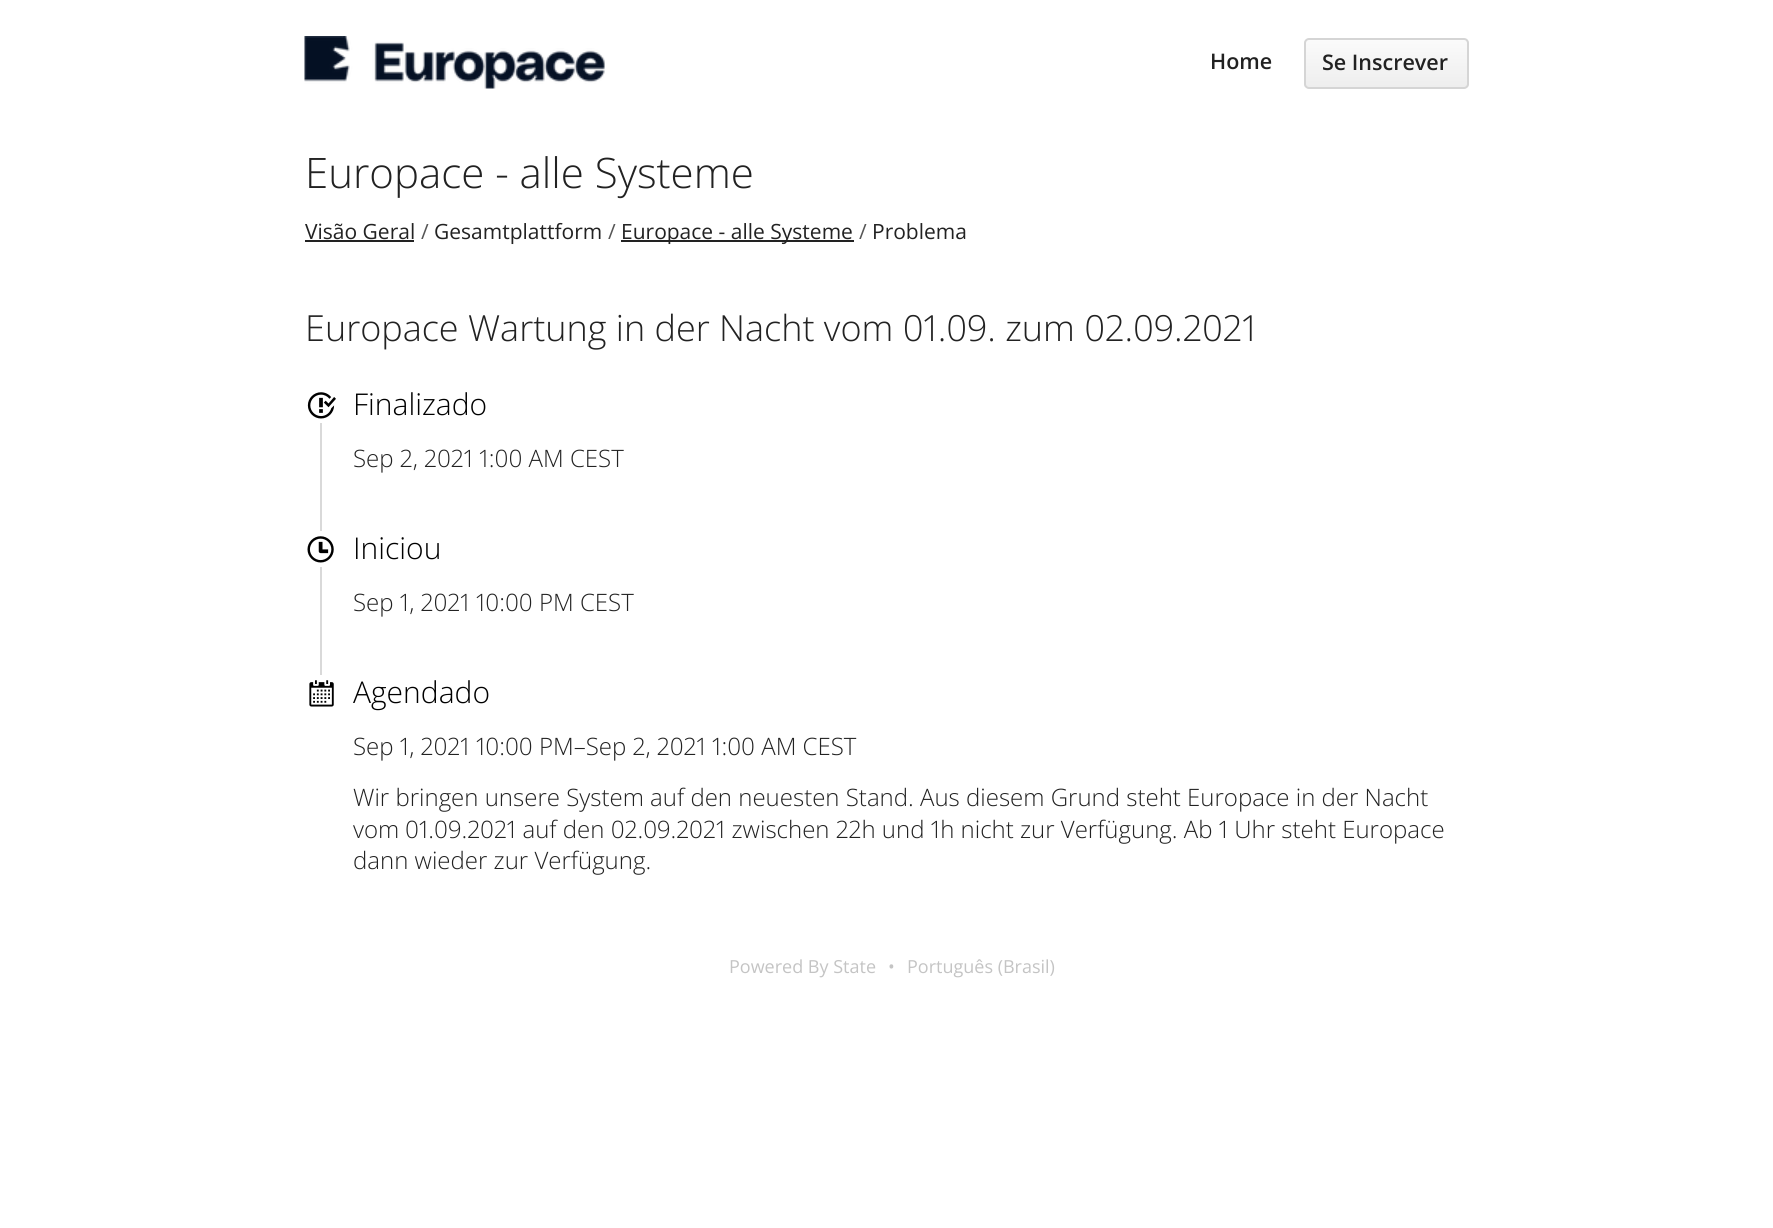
import math
import cairo

surface = cairo.ImageSurface(cairo.FORMAT_RGB24, 1773, 1228)
ctx = cairo.Context(surface)
options = cairo.FontOptions()
options.set_hint_metrics(cairo.HINT_METRICS_OFF)
options.set_hint_style(cairo.HINT_STYLE_NONE)
ctx.set_font_options(options)
ctx.set_miter_limit(4)


def set_color(code):
    ctx.set_source_rgb(*(v / 255 for v in bytes.fromhex(code[-6:])))


def draw_text(x, y, s, family, size, color, bold=False, italic=False):
    ctx.select_font_face(family, cairo.FONT_SLANT_ITALIC if italic else cairo.FONT_SLANT_NORMAL, cairo.FONT_WEIGHT_BOLD if bold else cairo.FONT_WEIGHT_NORMAL)
    ctx.set_font_size(size)
    set_color(color)
    ctx.move_to(x, y)
    ctx.show_text(s)


def fill_rect(x, y, w, h, color):
    set_color(color)
    ctx.rectangle(x, y, w, h)
    ctx.fill()


def rounded_rect(x, y, w, h, r):
    ctx.new_sub_path()
    for i, (u, v) in enumerate([(x + w - r, y + h - r), (x + r, y + h - r), (x + r, y + r), (x + w - r, y + r)]):
        ctx.arc(u, v, r, i * math.pi / 2, (i + 1) * math.pi / 2)
    ctx.close_path()


def draw_image(path, x, y, w, h):
    ctx.save()
    ctx.set_source_surface(cairo.ImageSurface.create_from_png(path), x, y)
    ctx.rectangle(x, y, w, h)
    ctx.fill()
    ctx.restore()


set_color("#ffffff")
ctx.paint()
draw_image("assets/img1.png", 304, 36, 301, 53)
draw_text(1210, 69, "Home", "Open Sans SemiBold", 21.5, "#222222")
ctx.save()
rounded_rect(1304, 38, 165, 51, 5)
ctx.clip()
gradient = cairo.LinearGradient(1386, 39, 1386, 87)
gradient.add_color_stop_rgba(0, 0.984, 0.984, 0.984, 1)
gradient.add_color_stop_rgba(1, 0.933, 0.933, 0.933, 1)
ctx.set_source(gradient)
ctx.rectangle(1304, 39, 165, 48)
ctx.fill()
ctx.restore()
rounded_rect(1305, 39, 163, 49, 4)
set_color("#d5d5d5")
ctx.stroke()
draw_text(1322, 70, "Se Inscrever", "Open Sans SemiBold", 21.5, "#222222")
draw_text(305, 188, "Europace - alle Systeme", "Open Sans Light", 42, "#222222")
draw_text(305, 239, "Visão Geral", "Open Sans", 21, "#222222")
fill_rect(305, 240, 109, 2, "#222222")
draw_text(421, 239, "/", "Open Sans", 21, "#565656")
draw_text(434, 239, "Gesamtplattform", "Open Sans", 21, "#222222")
draw_text(608, 239, "/", "Open Sans", 21, "#565656")
fill_rect(621, 240, 233, 2, "#222222")
draw_text(621, 239, "Europace - alle Systeme", "Open Sans", 21, "#222222")
draw_text(859, 239, "/", "Open Sans", 21, "#565656")
draw_text(872, 239, "Problema", "Open Sans", 21, "#222222")
draw_text(305, 341, "Europace Wartung in der Nacht vom 01.09. zum 02.09.2021", "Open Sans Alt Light", 36, "#222222")
fill_rect(320, 423, 2, 252, "#d9d9d9")
draw_image("assets/img2.png", 307, 392, 29, 27)
draw_text(353, 415, "Finalizado", "Open Sans Light", 30, "#000000")
draw_text(353, 467, "Sep 2, 2021 1:00 AM CEST", "Open Sans Alt Light", 24, "#222222")
fill_rect(320, 531, 2, 36, "#ffffff")
draw_image("assets/img3.png", 307, 536, 27, 27)
draw_text(353, 559, "Iniciou", "Open Sans Light", 30, "#000000")
draw_text(353, 611, "Sep 1, 2021 10:00 PM CEST", "Open Sans Alt Light", 24, "#222222")
draw_image("assets/img4.png", 309, 680, 25, 27)
draw_text(353, 703, "Agendado", "Open Sans Light", 30, "#000000")
draw_text(353, 755, "Sep 1, 2021 10:00 PM–Sep 2, 2021 1:00 AM CEST", "Open Sans Alt Light", 24, "#222222")
draw_text(353, 806, "Wir bringen unsere System auf den neuesten Stand. Aus diesem Grund steht Europace in der Nacht", "Open Sans Light", 24, "#222222")
draw_text(353, 838, "vom", "Open Sans Light", 24, "#222222")
draw_text(405, 838, "01.09.2021 auf den 02.09.2021 zwischen 22h und 1h nicht zur Verfügung. Ab 1 Uhr steht Europace", "Open Sans Alt Light", 24, "#222222")
draw_text(353, 869, "dann wieder zur Verfügung.", "Open Sans Light", 24, "#222222")
draw_text(729, 973, "Powered By State", "Open Sans", 18, "#c4c4c4")
draw_text(888, 973, "•", "Open Sans", 18, "#c4c4c4")
draw_text(907, 973, "Português (Brasil)", "Open Sans", 18, "#c4c4c4")
surface.write_to_png("output.png")
